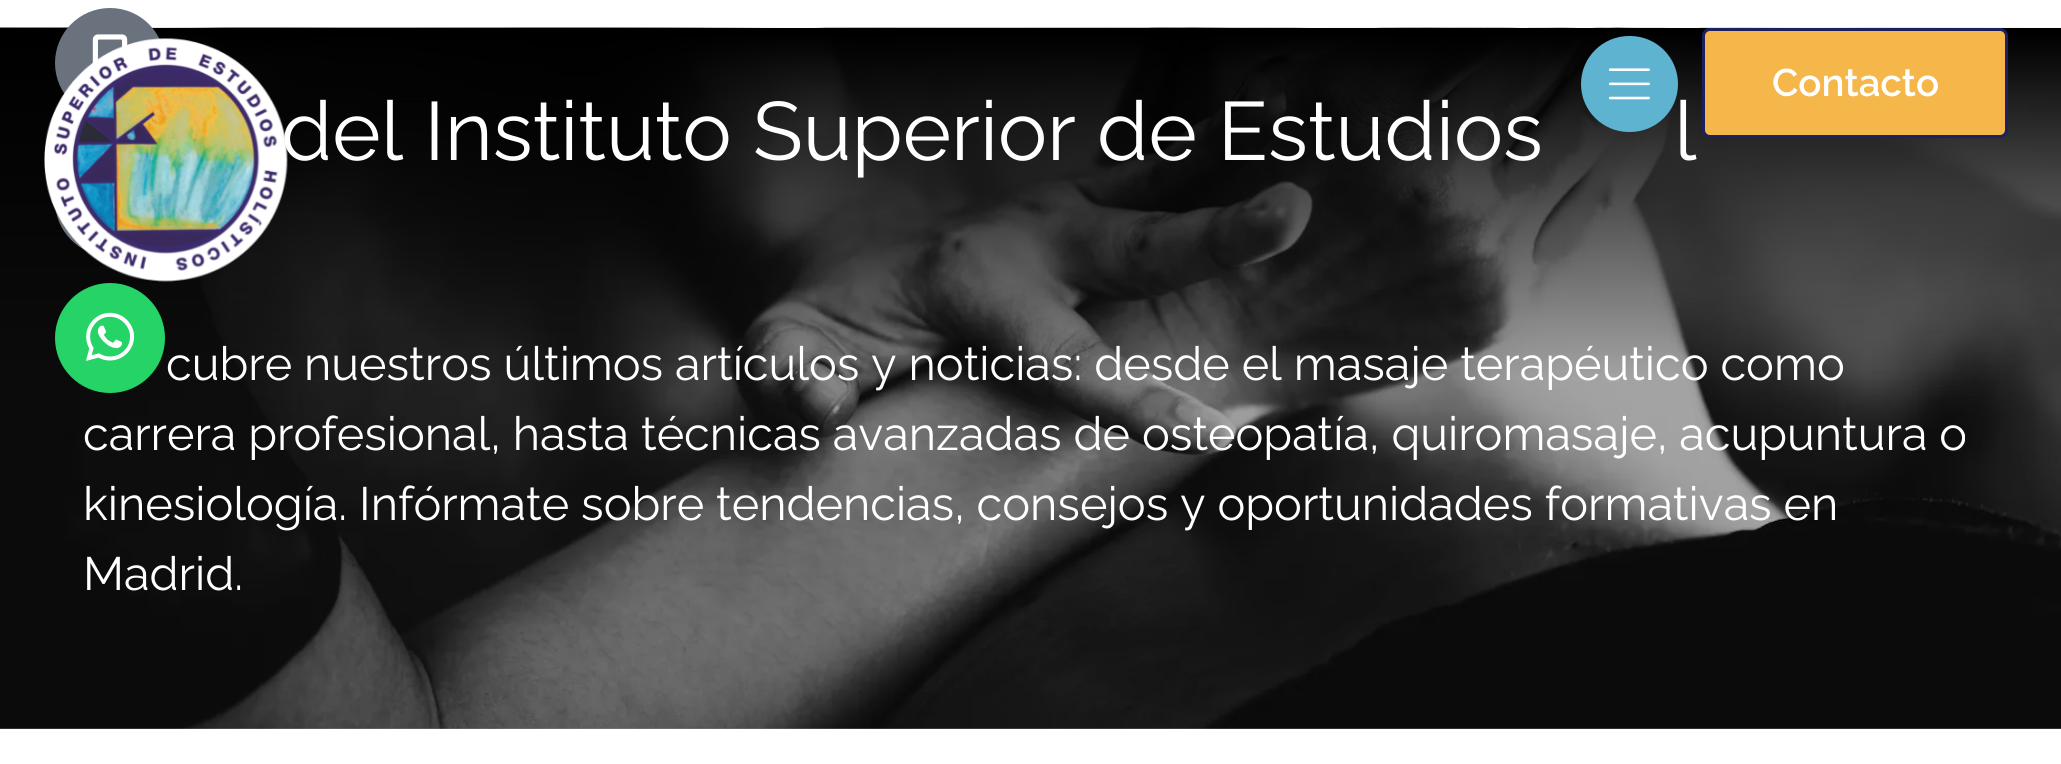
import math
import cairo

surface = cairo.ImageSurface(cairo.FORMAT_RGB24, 2061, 764)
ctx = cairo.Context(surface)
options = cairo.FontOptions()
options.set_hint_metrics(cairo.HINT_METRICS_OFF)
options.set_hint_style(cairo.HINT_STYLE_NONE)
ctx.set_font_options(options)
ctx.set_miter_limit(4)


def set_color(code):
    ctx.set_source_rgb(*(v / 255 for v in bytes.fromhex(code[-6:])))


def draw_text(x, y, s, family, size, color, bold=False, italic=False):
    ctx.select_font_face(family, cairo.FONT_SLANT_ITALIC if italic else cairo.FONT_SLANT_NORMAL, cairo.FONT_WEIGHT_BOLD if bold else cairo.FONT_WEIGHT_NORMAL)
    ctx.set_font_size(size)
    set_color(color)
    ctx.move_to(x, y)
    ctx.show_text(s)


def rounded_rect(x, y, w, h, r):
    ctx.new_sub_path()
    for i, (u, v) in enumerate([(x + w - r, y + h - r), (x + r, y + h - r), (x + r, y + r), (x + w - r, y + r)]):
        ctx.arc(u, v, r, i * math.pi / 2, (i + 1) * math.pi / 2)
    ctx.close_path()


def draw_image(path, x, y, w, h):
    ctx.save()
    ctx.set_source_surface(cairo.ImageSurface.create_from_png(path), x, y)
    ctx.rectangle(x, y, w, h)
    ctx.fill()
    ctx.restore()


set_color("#ffffff")
ctx.paint()
draw_image("assets/img5.png", 0, 27, 2061, 702)
gradient = cairo.LinearGradient(1031, 27, 1031, 729)
gradient.add_color_stop_rgba(0.01, 0, 0, 0, 1)
gradient.add_color_stop_rgba(0.5, 0, 0, 0, 0.35)
ctx.set_source(gradient)
ctx.rectangle(0, 28, 2061, 701)
ctx.fill()
set_color("#69727d")
ctx.arc(110, 63, 55, 0, 2 * math.pi)
ctx.fill()
draw_image("assets/img2.png", 92, 34, 36, 30)
ctx.arc(110, 201, 55, 0, 2 * math.pi)
ctx.fill()
draw_text(281, 160, "del Instituto Superior de Estudios", "Raleway", 82.5, "#ffffff")
draw_image("assets/img1.png", 44, 38, 244, 244)
set_color("#25d366")
ctx.arc(110, 338, 55, 0, 2 * math.pi)
ctx.fill()
draw_image("assets/img3.png", 86, 312, 49, 49)
set_color("#5db3d0")
rounded_rect(1581, 36, 97, 96, 48)
ctx.fill()
draw_image("assets/img4.png", 1609, 68, 41, 32)
set_color("#f5b749")
rounded_rect(1703.5, 29.5, 303, 107, 6.5)
ctx.fill_preserve()
set_color("#1c205f")
ctx.set_line_width(3)
ctx.stroke()
draw_text(1772, 96, "Contacto", "Raleway SemiBold", 38.5, "#ffffff")
draw_text(1674, 160, "l", "Raleway", 82.5, "#ffffff")
draw_text(166, 380, "cubre nuestros últimos artículos y noticias: desde el masaje terapéutico como", "Raleway", 46.75, "#ffffff")
draw_text(83, 450, "carrera profesional, hasta técnicas avanzadas de osteopatía, quiromasaje, acupuntura o", "Raleway", 46.75, "#ffffff")
draw_text(83, 520, "kinesiología. Infórmate sobre tendencias, consejos y oportunidades formativas en", "Raleway", 46.75, "#ffffff")
draw_text(83, 590, "Madrid.", "Raleway", 46.75, "#ffffff")
surface.write_to_png("output.png")
